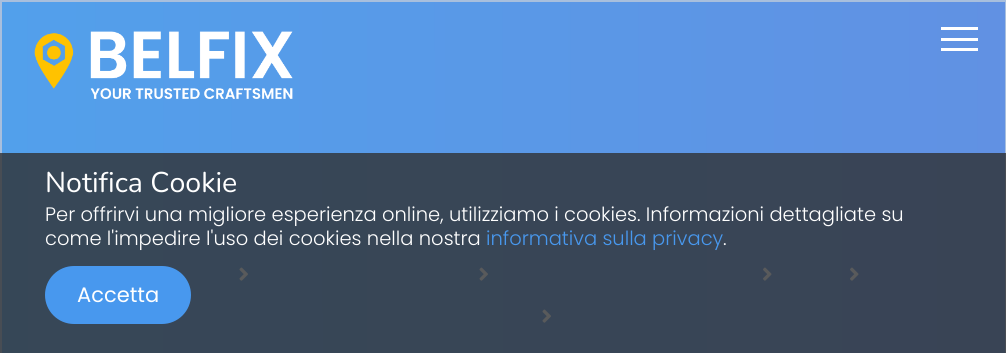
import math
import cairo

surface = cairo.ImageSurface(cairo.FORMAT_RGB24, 1006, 353)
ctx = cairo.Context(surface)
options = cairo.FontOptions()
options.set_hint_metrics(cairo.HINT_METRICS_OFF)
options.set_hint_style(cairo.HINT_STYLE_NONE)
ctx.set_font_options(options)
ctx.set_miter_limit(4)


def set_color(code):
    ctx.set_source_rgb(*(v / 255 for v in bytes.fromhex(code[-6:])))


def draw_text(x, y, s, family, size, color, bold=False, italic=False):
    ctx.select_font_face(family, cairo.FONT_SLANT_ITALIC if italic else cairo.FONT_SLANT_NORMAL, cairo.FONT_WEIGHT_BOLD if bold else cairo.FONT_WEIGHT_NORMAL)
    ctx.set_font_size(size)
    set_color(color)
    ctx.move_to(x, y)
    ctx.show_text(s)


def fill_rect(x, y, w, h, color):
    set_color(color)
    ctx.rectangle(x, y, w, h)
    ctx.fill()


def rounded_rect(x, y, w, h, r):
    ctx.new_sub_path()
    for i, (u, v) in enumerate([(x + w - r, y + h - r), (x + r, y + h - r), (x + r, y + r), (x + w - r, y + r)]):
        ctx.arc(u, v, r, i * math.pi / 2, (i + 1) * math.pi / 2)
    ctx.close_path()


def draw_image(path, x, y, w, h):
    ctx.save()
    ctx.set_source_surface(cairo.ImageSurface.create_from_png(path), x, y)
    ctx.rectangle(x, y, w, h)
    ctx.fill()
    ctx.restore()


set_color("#ffffff")
ctx.paint()
gradient = cairo.LinearGradient(1.5, 185, 1005, 184)
gradient.add_color_stop_rgba(0, 0.322, 0.627, 0.922, 1)
gradient.add_color_stop_rgba(1, 0.38, 0.569, 0.89, 1)
ctx.set_source(gradient)
ctx.rectangle(2, 2, 1003, 351)
ctx.fill()
ctx.rectangle(1, 1, 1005, 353)
set_color("#a8bfdd")
ctx.stroke()
draw_image("assets/img1.png", 239, 267, 9, 14)
draw_image("assets/img2.png", 479, 267, 9, 14)
draw_image("assets/img3.png", 763, 267, 9, 14)
draw_image("assets/img4.png", 850, 267, 9, 14)
draw_image("assets/img5.png", 542, 309, 9, 14)
draw_image("assets/img6.png", 34, 31, 259, 68)
fill_rect(941, 38, 37, 3, "#ffffff")
fill_rect(941, 27, 37, 3, "#ffffff")
fill_rect(941, 48, 37, 3, "#ffffff")
ctx.set_source_rgba(0.188, 0.192, 0.2, 0.8)
ctx.rectangle(0, 153, 1006, 200)
ctx.fill()
draw_text(45, 192, "Notifica Cookie", "Nunito", 28.5, "#ffffff")
draw_text(45, 221, "Per offrirvi una migliore esperienza online, utilizziamo i cookies. Informazioni dettagliate su", "Poppins Light", 19.5, "#ffffff")
draw_text(45, 245, "come l'impedire l'uso dei cookies nella nostra", "Poppins Light", 19.5, "#ffffff")
draw_text(486, 245, "informativa sulla privacy", "Poppins Light", 19.5, "#4898ee")
draw_text(723, 245, ".", "Poppins Light", 19.5, "#ffffff")
set_color("#4898ee")
rounded_rect(46, 267, 144, 56, 28)
ctx.fill_preserve()
ctx.stroke()
draw_text(77, 302, "Accetta", "Poppins", 21, "#ffffff")
surface.write_to_png("output.png")
